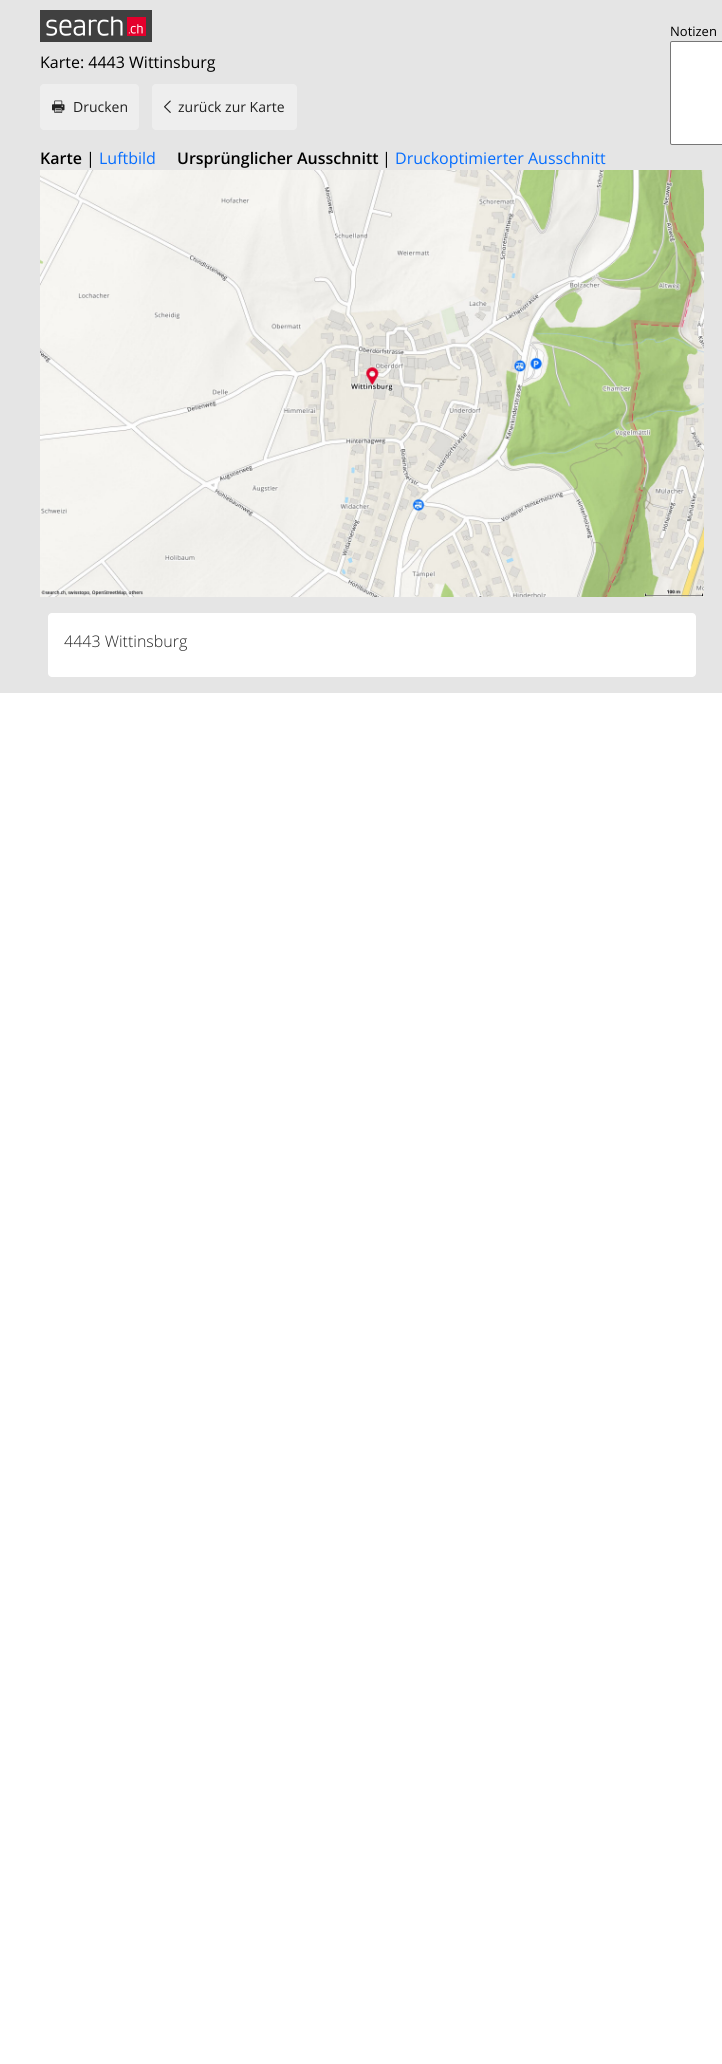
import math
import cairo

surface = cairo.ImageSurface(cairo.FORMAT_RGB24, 722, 2064)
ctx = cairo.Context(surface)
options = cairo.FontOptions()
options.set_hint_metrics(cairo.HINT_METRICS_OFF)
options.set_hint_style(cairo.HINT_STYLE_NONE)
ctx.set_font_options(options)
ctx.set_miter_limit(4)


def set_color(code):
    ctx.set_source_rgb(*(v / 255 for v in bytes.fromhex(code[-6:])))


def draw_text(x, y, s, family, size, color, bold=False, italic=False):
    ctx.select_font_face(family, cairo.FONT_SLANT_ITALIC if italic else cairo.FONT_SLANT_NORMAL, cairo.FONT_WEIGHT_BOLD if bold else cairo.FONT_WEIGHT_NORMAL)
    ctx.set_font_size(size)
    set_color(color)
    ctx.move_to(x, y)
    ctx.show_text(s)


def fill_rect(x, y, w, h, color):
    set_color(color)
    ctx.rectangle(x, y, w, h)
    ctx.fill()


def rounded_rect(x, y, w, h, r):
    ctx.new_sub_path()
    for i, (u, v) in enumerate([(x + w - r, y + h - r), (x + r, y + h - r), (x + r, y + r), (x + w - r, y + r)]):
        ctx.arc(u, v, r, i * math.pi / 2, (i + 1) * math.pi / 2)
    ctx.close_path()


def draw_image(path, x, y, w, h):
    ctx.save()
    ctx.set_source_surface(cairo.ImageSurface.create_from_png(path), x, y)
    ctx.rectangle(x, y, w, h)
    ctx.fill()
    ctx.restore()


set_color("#ffffff")
ctx.paint()
fill_rect(0, 0, 722, 693, "#e5e5e5")
draw_text(670, 36, "Notizen", "Open Sans", 13, "#000000")
set_color("#ffffff")
ctx.new_path()
ctx.move_to(672, 41)
ctx.line_to(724, 41)
ctx.line_to(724, 145)
ctx.line_to(672, 145)
ctx.curve_to(671, 145, 670, 144, 670, 143)
ctx.line_to(670, 43)
ctx.curve_to(670, 42, 671, 41, 672, 41)
ctx.close_path()
ctx.fill()
rounded_rect(670.5, 41.5, 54, 103, 1.5)
set_color("#767676")
ctx.set_line_width(1)
ctx.stroke()
draw_image("assets/img1.png", 40, 10, 112, 32)
draw_text(40, 68, "Karte: 4443 Wittinsburg", "Open Sans", 16, "#000000")
set_color("#eeeeee")
rounded_rect(40, 84, 99, 46, 4)
ctx.fill()
draw_image("assets/img2.png", 52, 100, 13, 13)
draw_text(73, 112, "Drucken", "Open Sans", 14, "#222222")
set_color("#eeeeee")
rounded_rect(152, 84, 145, 46, 4)
ctx.fill()
draw_image("assets/img3.png", 164, 100, 7, 13)
draw_text(178, 112, "zurück zur Karte", "Open Sans", 14, "#222222")
draw_text(40, 164, "Karte", "Open Sans SemiBold", 16, "#000000")
draw_text(86, 164, "|", "Open Sans", 16, "#000000")
draw_text(99, 164, "Luftbild", "Open Sans", 16, "#056dff")
draw_text(177, 164, "Ursprünglicher Ausschnitt", "Open Sans SemiBold", 16, "#000000")
draw_text(382, 164, "|", "Open Sans", 16, "#000000")
draw_text(395, 164, "Druckoptimierter Ausschnitt", "Open Sans", 16, "#056dff")
draw_image("assets/img4.png", 40, 170, 664, 427)
set_color("#ffffff")
rounded_rect(48, 613, 648, 64, 4)
ctx.fill()
draw_text(64, 647, "4443 Wittinsburg", "Open Sans Light", 16, "#222222")
surface.write_to_png("output.png")
